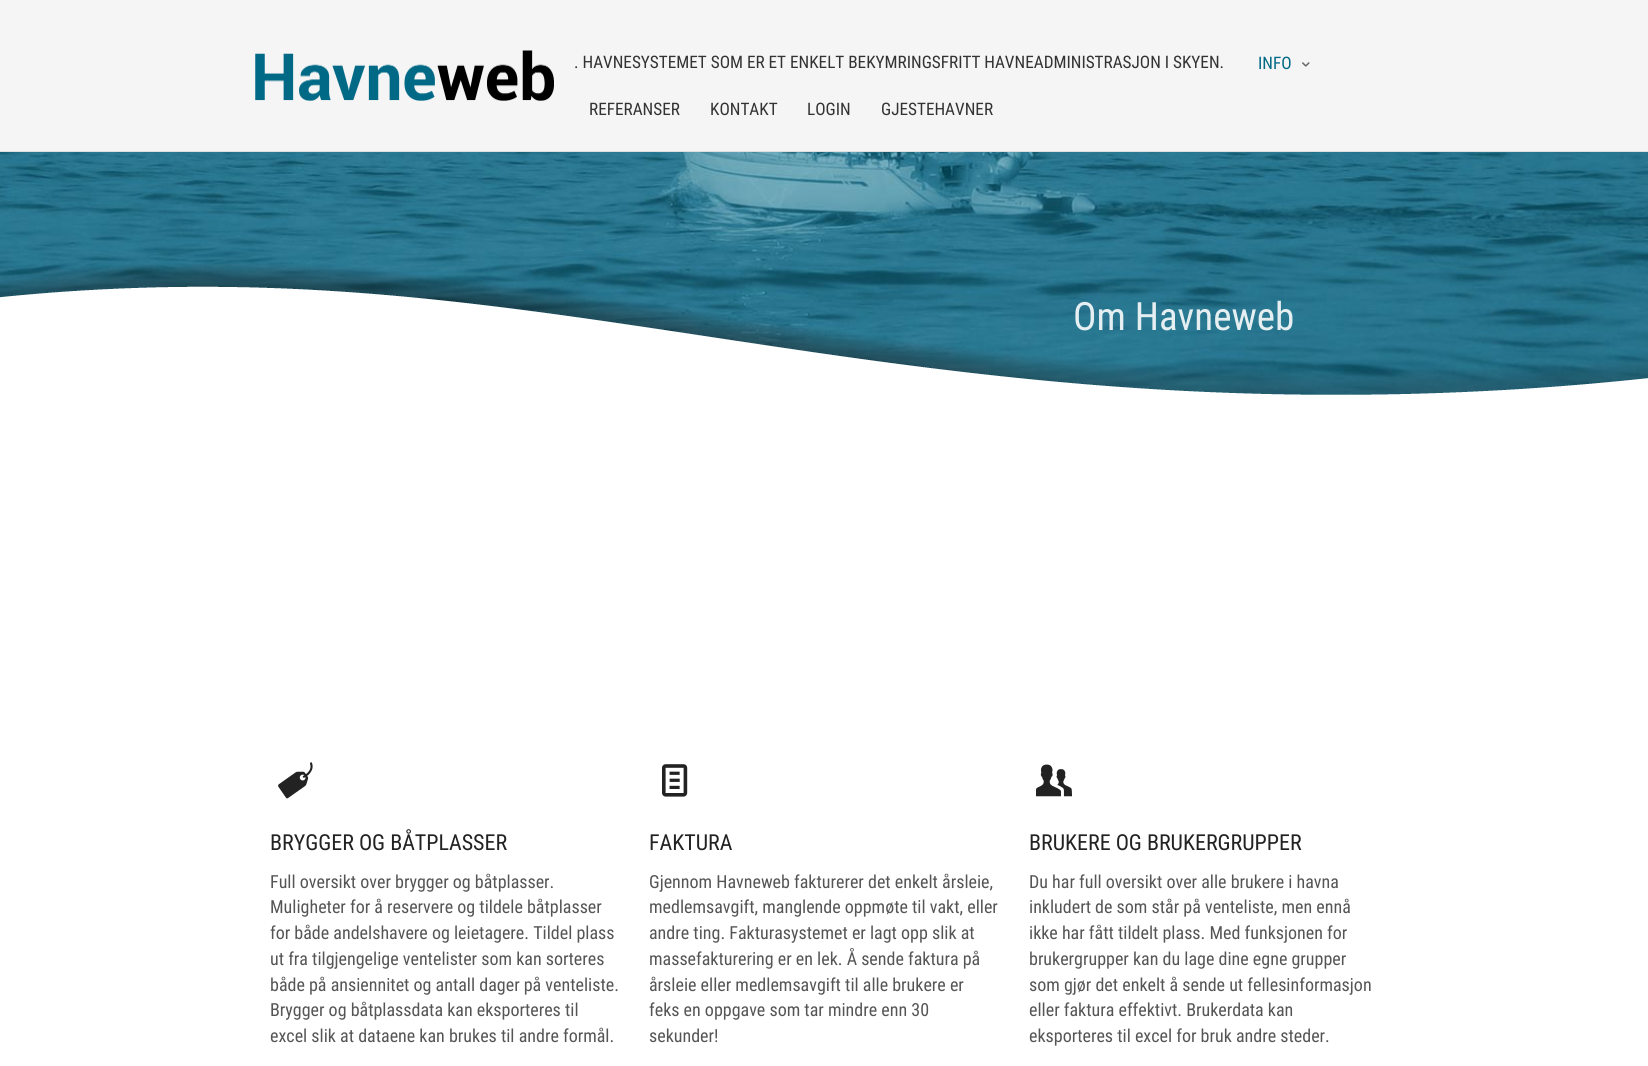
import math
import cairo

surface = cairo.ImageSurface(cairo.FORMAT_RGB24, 1648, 1066)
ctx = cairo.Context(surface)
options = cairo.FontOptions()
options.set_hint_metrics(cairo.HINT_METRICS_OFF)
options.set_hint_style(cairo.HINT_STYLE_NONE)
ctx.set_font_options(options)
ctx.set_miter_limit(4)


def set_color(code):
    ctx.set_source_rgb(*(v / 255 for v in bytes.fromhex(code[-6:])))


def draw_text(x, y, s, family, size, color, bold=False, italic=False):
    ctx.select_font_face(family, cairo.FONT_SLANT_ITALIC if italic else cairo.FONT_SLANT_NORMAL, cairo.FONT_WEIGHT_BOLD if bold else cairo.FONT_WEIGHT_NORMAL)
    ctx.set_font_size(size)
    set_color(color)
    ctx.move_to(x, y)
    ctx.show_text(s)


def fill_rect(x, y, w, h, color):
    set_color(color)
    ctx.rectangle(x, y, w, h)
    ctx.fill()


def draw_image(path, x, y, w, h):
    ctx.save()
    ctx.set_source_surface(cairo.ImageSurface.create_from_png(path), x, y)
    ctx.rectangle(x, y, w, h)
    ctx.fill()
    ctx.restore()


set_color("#ffffff")
ctx.paint()
fill_rect(0, 0, 1648, 151, "#f5f5f5")
fill_rect(0, 151, 1648, 1, "#dfdfdf")
draw_image("assets/img1.png", 255, 50, 299, 51)
draw_text(574, 68, ". HAVNESYSTEMET SOM ER ET ENKELT BEKYMRINGSFRITT HAVNEADMINISTRASJON I SKYEN.", "Roboto Condensed", 17.2, "#333333")
draw_text(1258, 69, "INFO", "Roboto Condensed", 17.2, "#006985")
draw_image("assets/img2.png", 1302, 62, 8, 5)
draw_text(589, 115, "REFERANSER", "Roboto Condensed", 17.2, "#333333")
draw_text(710, 115, "KONTAKT", "Roboto Condensed", 17.2, "#333333")
draw_text(807, 115, "LOGIN", "Roboto Condensed", 17.2, "#333333")
draw_text(881, 115, "GJESTEHAVNER", "Roboto Condensed", 17.2, "#333333")
draw_image("assets/img3.png", 0, 152, 1648, 243)
draw_text(1073, 330, "Om Havneweb", "Roboto Condensed", 39, "#e5eff2")
draw_image("assets/img4.png", 0, 263, 1648, 139)
draw_image("assets/img5.png", 278, 762, 35, 37)
draw_text(270, 850, "BRYGGER OG BÅTPLASSER", "Roboto Condensed", 22, "#222222")
draw_text(270, 888, "Full oversikt over brygger og båtplasser.", "Roboto Condensed", 18, "#555555")
draw_text(270, 913, "Muligheter for å reservere og tildele båtplasser", "Roboto Condensed", 18, "#555555")
draw_text(270, 939, "for både andelshavere og leietagere. Tildel plass", "Roboto Condensed", 18, "#555555")
draw_text(270, 965, "ut fra tilgjengelige ventelister som kan sorteres", "Roboto Condensed", 18, "#555555")
draw_text(270, 991, "både på ansiennitet og antall dager på venteliste.", "Roboto Condensed", 18, "#555555")
draw_text(270, 1016, "Brygger og båtplassdata kan eksporteres til", "Roboto Condensed", 18, "#555555")
draw_text(270, 1042, "excel slik at dataene kan brukes til andre formål.", "Roboto Condensed", 18, "#555555")
draw_image("assets/img6.png", 662, 764, 26, 33)
draw_text(649, 850, "FAKTURA", "Roboto Condensed", 22, "#222222")
draw_text(649, 888, "Gjennom Havneweb fakturerer det enkelt årsleie,", "Roboto Condensed", 18, "#555555")
draw_text(649, 913, "medlemsavgift, manglende oppmøte til vakt, eller", "Roboto Condensed", 18, "#555555")
draw_text(649, 939, "andre ting. Fakturasystemet er lagt opp slik at", "Roboto Condensed", 18, "#555555")
draw_text(649, 965, "massefakturering er en lek. Å sende faktura på", "Roboto Condensed", 18, "#555555")
draw_text(649, 991, "årsleie eller medlemsavgift til alle brukere er", "Roboto Condensed", 18, "#555555")
draw_text(649, 1016, "feks en oppgave som tar mindre enn 30", "Roboto Condensed", 18, "#555555")
draw_text(649, 1042, "sekunder!", "Roboto Condensed", 18, "#555555")
draw_image("assets/img7.png", 1036, 764, 36, 33)
draw_text(1029, 850, "BRUKERE OG BRUKERGRUPPER", "Roboto Condensed", 22, "#222222")
draw_text(1029, 888, "Du har full oversikt over alle brukere i havna", "Roboto Condensed", 18, "#555555")
draw_text(1029, 913, "inkludert de som står på venteliste, men ennå", "Roboto Condensed", 18, "#555555")
draw_text(1029, 939, "ikke har fått tildelt plass. Med funksjonen for", "Roboto Condensed", 18, "#555555")
draw_text(1029, 965, "brukergrupper kan du lage dine egne grupper", "Roboto Condensed", 18, "#555555")
draw_text(1029, 991, "som gjør det enkelt å sende ut fellesinformasjon", "Roboto Condensed", 18, "#555555")
draw_text(1029, 1016, "eller faktura effektivt. Brukerdata kan", "Roboto Condensed", 18, "#555555")
draw_text(1029, 1042, "eksporteres til excel for bruk andre steder.", "Roboto Condensed", 18, "#555555")
surface.write_to_png("output.png")
